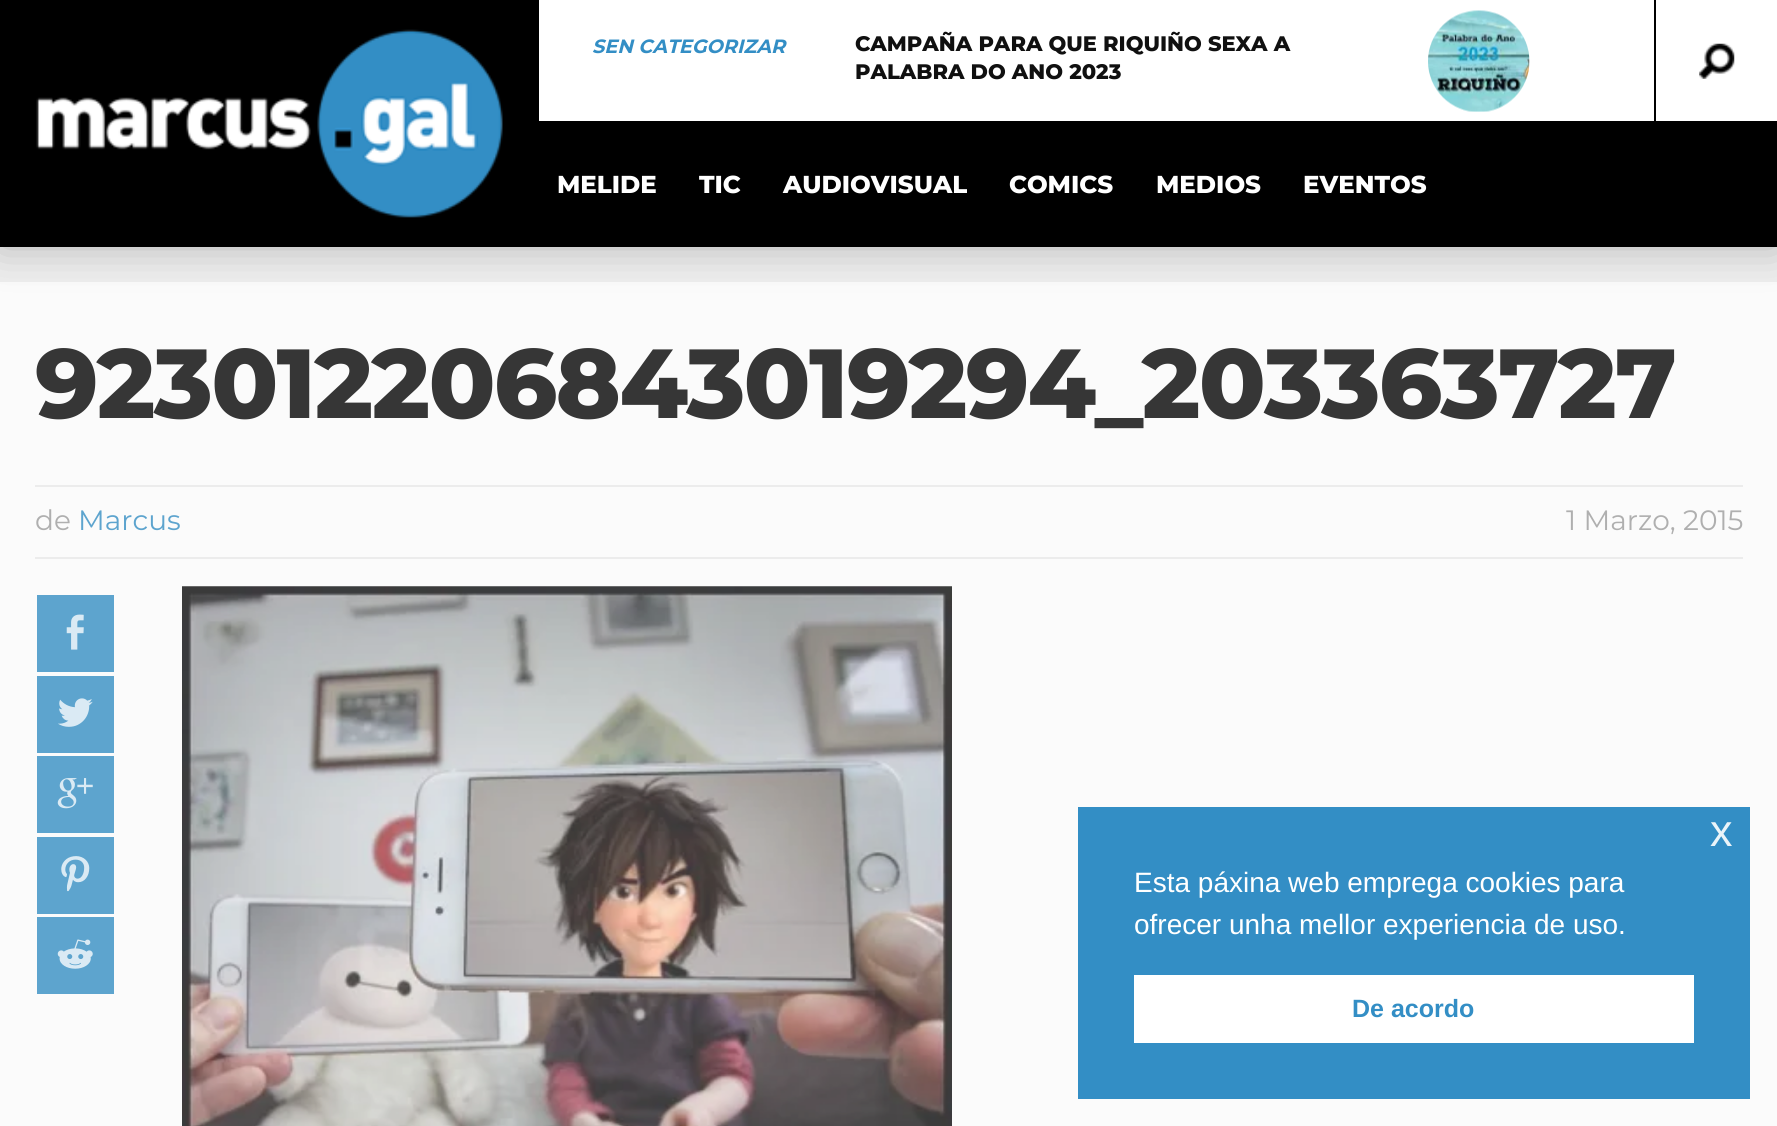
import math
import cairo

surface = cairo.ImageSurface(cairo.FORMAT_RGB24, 1777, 1126)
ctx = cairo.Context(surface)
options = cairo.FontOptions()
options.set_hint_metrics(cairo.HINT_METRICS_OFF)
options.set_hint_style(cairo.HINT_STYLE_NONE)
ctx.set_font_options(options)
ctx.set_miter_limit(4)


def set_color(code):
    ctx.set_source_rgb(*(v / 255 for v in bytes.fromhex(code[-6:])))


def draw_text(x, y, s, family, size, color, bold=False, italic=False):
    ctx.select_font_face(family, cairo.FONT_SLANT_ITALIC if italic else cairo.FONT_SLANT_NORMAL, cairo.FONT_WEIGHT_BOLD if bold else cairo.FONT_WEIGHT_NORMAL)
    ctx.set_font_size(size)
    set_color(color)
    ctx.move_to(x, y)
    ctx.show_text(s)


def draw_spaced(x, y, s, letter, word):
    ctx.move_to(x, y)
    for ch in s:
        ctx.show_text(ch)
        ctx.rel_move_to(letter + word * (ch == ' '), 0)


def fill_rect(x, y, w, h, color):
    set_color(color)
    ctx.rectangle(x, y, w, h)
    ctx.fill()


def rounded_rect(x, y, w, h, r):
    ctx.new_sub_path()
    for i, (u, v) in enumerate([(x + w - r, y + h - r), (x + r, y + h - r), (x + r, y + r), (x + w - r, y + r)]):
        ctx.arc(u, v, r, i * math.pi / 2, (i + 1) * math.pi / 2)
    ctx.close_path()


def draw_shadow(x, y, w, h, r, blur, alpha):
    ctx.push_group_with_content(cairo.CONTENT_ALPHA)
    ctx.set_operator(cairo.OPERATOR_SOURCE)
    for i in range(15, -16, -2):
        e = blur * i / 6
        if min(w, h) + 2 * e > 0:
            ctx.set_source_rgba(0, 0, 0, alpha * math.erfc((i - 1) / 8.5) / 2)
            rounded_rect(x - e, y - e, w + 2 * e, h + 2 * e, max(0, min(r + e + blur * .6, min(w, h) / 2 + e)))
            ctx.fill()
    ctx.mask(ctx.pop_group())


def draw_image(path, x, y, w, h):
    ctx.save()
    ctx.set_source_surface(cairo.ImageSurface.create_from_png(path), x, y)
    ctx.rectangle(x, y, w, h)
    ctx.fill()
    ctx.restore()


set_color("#eeeeee")
ctx.paint()
fill_rect(0, 282, 1777, 844, "#fbfbfb")
set_color("#000000")
draw_shadow(0, 0, 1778, 247, 0, 21, 0.25)
fill_rect(0, 0, 1777, 247, "#000000")
draw_image("assets/img1.png", 36, 29, 467, 189)
fill_rect(539, 0, 1238, 121, "#ffffff")
draw_text(592, 53, "SEN CATEGORIZAR", "Montserrat", 19.25, "#338ec5", bold=True, italic=True)
draw_text(855, 51, "CAMPAÑA PARA QUE RIQUIÑO SEXA A", "Montserrat ExtraBold", 21, "#101010")
draw_text(855, 79, "PALABRA DO ANO 2023", "Montserrat ExtraBold", 21, "#101010")
draw_image("assets/img2.png", 1428, 10, 102, 102)
draw_image("assets/img3.png", 1699, 43, 36, 36)
fill_rect(1654, 0, 2, 121, "#000000")
draw_text(557, 193, "MELIDE", "Montserrat ExtraBold", 24.5, "#ffffff")
draw_text(699, 193, "TIC", "Montserrat ExtraBold", 24.5, "#ffffff")
draw_text(783, 193, "AUDIOVISUAL", "Montserrat ExtraBold", 24.5, "#ffffff")
draw_text(1009, 193, "COMICS", "Montserrat ExtraBold", 24.5, "#ffffff")
draw_text(1156, 193, "MEDIOS", "Montserrat ExtraBold", 24.5, "#ffffff")
draw_text(1303, 193, "EVENTOS", "Montserrat ExtraBold", 24.5, "#ffffff")
ctx.set_font_size(98)
set_color("#363636")
draw_spaced(35, 418, "923012206843019294_203363727", -1.75, 0)
fill_rect(35, 485, 1708, 2, "#ececec")
fill_rect(35, 557, 1708, 2, "#ececec")
draw_text(35, 530, "de", "Montserrat", 28, "#afafaf")
draw_text(78, 530, "Marcus", "Montserrat", 28, "#5da4ce")
draw_text(1566, 530, "1 Marzo, 2015", "Montserrat", 28, "#afafaf")
fill_rect(37, 595, 77, 77, "#5da4ce")
draw_image("assets/img4.png", 66, 614, 18, 36)
fill_rect(37, 676, 77, 77, "#5da4ce")
draw_image("assets/img5.png", 58, 698, 35, 29)
fill_rect(37, 756, 77, 77, "#5da4ce")
draw_image("assets/img6.png", 57, 778, 36, 31)
fill_rect(37, 837, 77, 77, "#5da4ce")
draw_image("assets/img7.png", 61, 856, 29, 36)
fill_rect(37, 917, 77, 77, "#5da4ce")
draw_image("assets/img8.png", 57, 939, 36, 30)
draw_image("assets/img9.png", 182, 586, 770, 540)
fill_rect(1078, 807, 672, 292, "#338ec5")
draw_text(1710, 846, "x", "Liberation Sans", 45, "#ebf4f9")
draw_text(1134, 892, "Esta páxina web emprega cookies para", "Liberation Sans", 28, "#ffffff")
draw_text(1134, 934, "ofrecer unha mellor experiencia de uso.", "Liberation Sans", 28, "#ffffff")
fill_rect(1134, 975, 560, 68, "#ffffff")
draw_text(1352, 1017, "De acordo", "Liberation Sans", 25, "#338ec5", bold=True)
surface.write_to_png("output.png")
